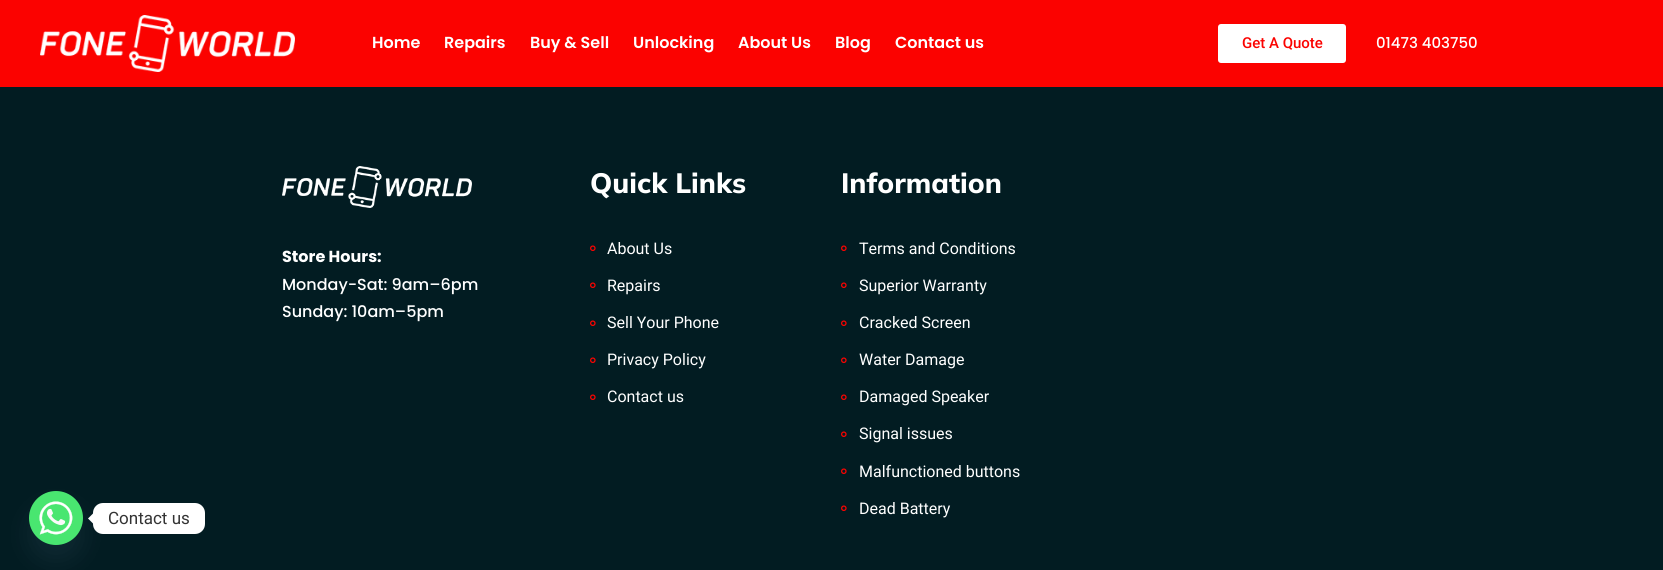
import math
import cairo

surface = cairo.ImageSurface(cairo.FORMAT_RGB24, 1663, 570)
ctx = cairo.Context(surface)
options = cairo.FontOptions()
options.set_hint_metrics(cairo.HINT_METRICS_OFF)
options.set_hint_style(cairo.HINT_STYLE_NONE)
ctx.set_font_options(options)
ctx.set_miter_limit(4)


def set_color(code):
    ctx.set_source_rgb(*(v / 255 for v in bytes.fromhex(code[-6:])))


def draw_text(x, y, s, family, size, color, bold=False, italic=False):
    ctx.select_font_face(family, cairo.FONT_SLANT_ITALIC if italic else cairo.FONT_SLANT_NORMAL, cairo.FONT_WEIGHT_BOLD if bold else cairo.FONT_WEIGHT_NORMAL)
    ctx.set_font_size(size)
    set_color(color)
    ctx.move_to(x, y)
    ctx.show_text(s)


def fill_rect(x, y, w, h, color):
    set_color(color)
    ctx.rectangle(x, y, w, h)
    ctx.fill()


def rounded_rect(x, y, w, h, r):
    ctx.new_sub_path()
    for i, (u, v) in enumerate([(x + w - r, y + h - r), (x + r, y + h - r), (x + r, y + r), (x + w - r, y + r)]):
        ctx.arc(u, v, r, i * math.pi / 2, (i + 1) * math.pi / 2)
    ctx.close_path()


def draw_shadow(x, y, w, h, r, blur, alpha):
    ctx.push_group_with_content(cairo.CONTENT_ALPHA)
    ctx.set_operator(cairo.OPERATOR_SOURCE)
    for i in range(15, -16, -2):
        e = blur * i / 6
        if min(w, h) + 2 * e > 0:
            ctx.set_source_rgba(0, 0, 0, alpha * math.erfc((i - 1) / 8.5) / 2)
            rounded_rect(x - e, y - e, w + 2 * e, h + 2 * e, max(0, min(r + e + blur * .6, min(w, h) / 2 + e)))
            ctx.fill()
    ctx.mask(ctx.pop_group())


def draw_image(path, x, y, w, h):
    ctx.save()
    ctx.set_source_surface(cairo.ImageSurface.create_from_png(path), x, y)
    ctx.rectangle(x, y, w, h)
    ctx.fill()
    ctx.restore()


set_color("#021c22")
ctx.paint()
set_color("#49687e")
draw_shadow(29, 507, 54, 54, 27, 12, 0.16)
draw_image("assets/img1.png", 29, 491, 54, 54)
set_color("#ffffff")
rounded_rect(93, 503, 112, 31, 10)
ctx.fill()
ctx.new_path()
ctx.move_to(93, 513.5)
ctx.line_to(93, 523.5)
ctx.line_to(88, 518.5)
ctx.close_path()
ctx.fill()
draw_text(108, 524, "Contact us", "Roboto", 17, "#333333")
fill_rect(0, 0, 1663, 87, "#fb0200")
draw_image("assets/img2.png", 40, 15, 255, 57)
draw_text(372, 48, "Home", "Poppins SemiBold", 16, "#ffffff")
draw_text(444, 48, "Repairs", "Poppins SemiBold", 16, "#ffffff")
draw_text(530, 48, "Buy & Sell", "Poppins SemiBold", 16, "#ffffff")
draw_text(633, 48, "Unlocking", "Poppins SemiBold", 16, "#ffffff")
draw_text(738, 48, "About Us", "Poppins SemiBold", 16, "#ffffff")
draw_text(835, 48, "Blog", "Poppins SemiBold", 16, "#ffffff")
draw_text(895, 48, "Contact us", "Poppins SemiBold", 16, "#ffffff")
rounded_rect(1218, 24, 128, 39, 3)
ctx.fill()
draw_text(1242, 48, "Get A Quote", "Roboto Medium", 15, "#fb0200")
draw_text(1376, 48, "01473 403750", "Poppins Medium", 15, "#ffffff")
draw_image("assets/img3.png", 282, 166, 190, 42)
draw_text(282, 262, "Store Hours:", "Poppins", 16, "#ffffff", bold=True)
draw_text(282, 290, "Monday-Sat: 9am–6pm", "Poppins Medium", 16, "#ffffff")
draw_text(282, 317, "Sunday: 10am–5pm", "Poppins Medium", 16, "#ffffff")
draw_text(590, 193, "Quick Links", "Mulish ExtraBold", 28, "#ffffff")
draw_image("assets/img4.png", 590, 245, 6, 6)
draw_text(607, 254, "About Us", "Roboto", 16, "#ffffff")
draw_image("assets/img4.png", 590, 282, 6, 6)
draw_text(607, 291, "Repairs", "Roboto", 16, "#ffffff")
draw_image("assets/img4.png", 590, 320, 6, 6)
draw_text(607, 328, "Sell Your Phone", "Roboto", 16, "#ffffff")
draw_image("assets/img4.png", 590, 357, 6, 6)
draw_text(607, 365, "Privacy Policy", "Roboto", 16, "#ffffff")
draw_image("assets/img4.png", 590, 394, 6, 6)
draw_text(607, 402, "Contact us", "Roboto", 16, "#ffffff")
draw_text(841, 193, "Information", "Mulish ExtraBold", 28, "#ffffff")
draw_image("assets/img4.png", 841, 245, 6, 6)
draw_text(859, 254, "Terms and Conditions", "Roboto", 16, "#ffffff")
draw_image("assets/img4.png", 841, 282, 6, 6)
draw_text(859, 291, "Superior Warranty", "Roboto", 16, "#ffffff")
draw_image("assets/img4.png", 841, 320, 6, 6)
draw_text(859, 328, "Cracked Screen", "Roboto", 16, "#ffffff")
draw_image("assets/img4.png", 841, 357, 6, 6)
draw_text(859, 365, "Water Damage", "Roboto", 16, "#ffffff")
draw_image("assets/img4.png", 841, 394, 6, 6)
draw_text(859, 402, "Damaged Speaker", "Roboto", 16, "#ffffff")
draw_image("assets/img4.png", 841, 431, 6, 6)
draw_text(859, 439, "Signal issues", "Roboto", 16, "#ffffff")
draw_image("assets/img4.png", 841, 468, 6, 6)
draw_text(859, 477, "Malfunctioned buttons", "Roboto", 16, "#ffffff")
draw_image("assets/img4.png", 841, 505, 6, 6)
draw_text(859, 514, "Dead Battery", "Roboto", 16, "#ffffff")
surface.write_to_png("output.png")
